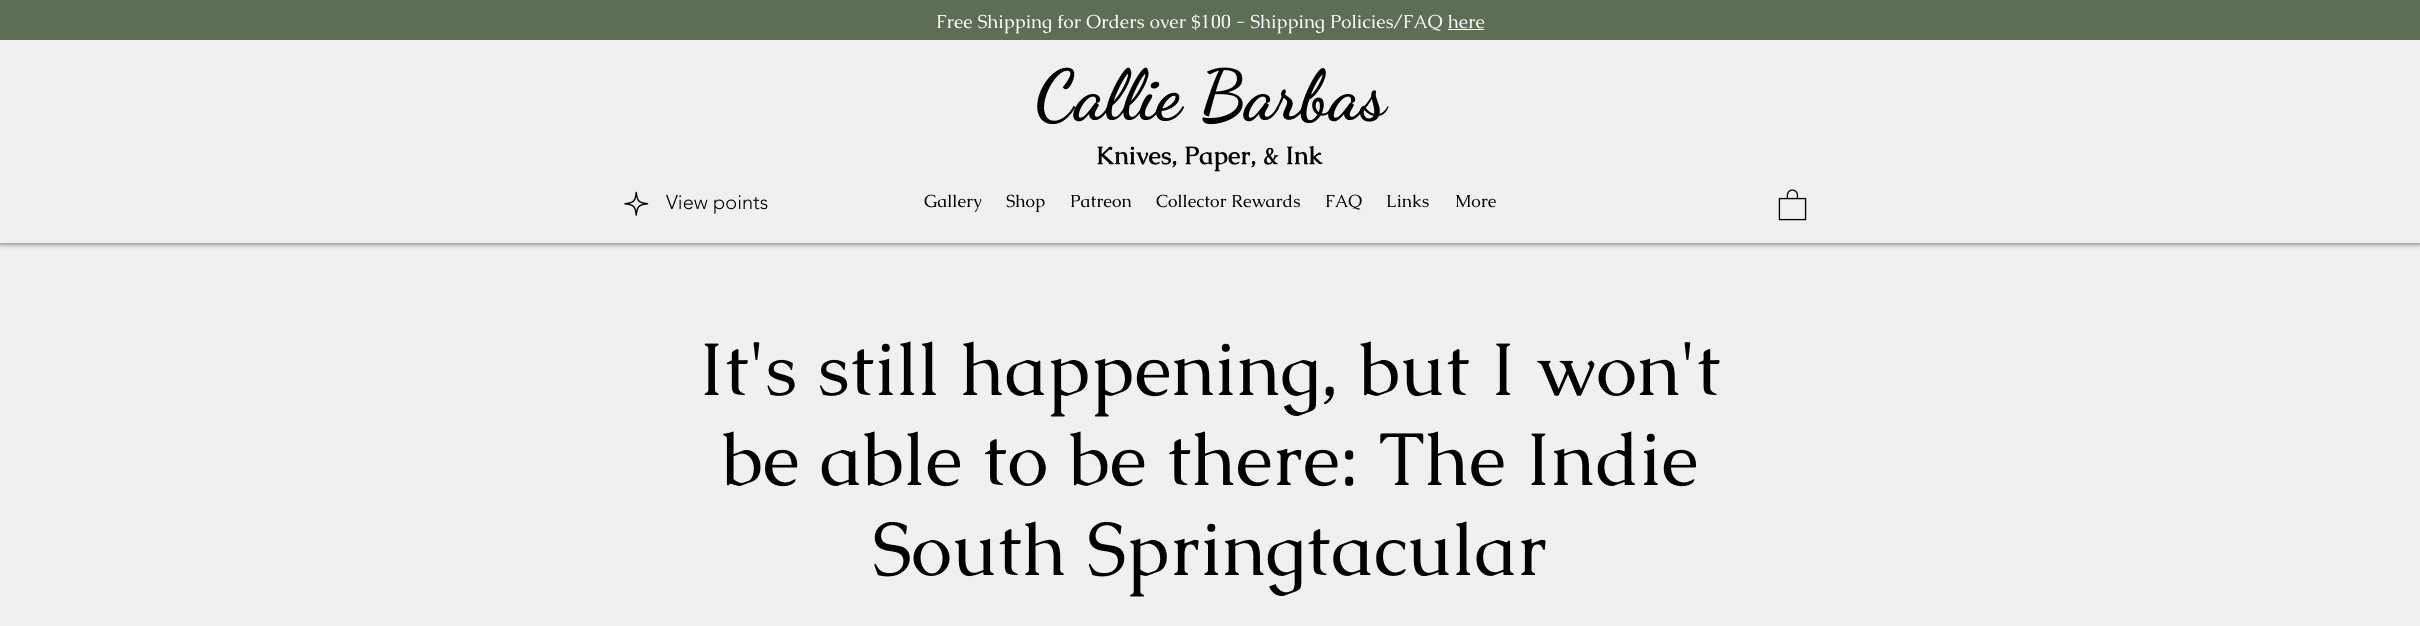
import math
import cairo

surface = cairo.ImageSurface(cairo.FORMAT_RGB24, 2420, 626)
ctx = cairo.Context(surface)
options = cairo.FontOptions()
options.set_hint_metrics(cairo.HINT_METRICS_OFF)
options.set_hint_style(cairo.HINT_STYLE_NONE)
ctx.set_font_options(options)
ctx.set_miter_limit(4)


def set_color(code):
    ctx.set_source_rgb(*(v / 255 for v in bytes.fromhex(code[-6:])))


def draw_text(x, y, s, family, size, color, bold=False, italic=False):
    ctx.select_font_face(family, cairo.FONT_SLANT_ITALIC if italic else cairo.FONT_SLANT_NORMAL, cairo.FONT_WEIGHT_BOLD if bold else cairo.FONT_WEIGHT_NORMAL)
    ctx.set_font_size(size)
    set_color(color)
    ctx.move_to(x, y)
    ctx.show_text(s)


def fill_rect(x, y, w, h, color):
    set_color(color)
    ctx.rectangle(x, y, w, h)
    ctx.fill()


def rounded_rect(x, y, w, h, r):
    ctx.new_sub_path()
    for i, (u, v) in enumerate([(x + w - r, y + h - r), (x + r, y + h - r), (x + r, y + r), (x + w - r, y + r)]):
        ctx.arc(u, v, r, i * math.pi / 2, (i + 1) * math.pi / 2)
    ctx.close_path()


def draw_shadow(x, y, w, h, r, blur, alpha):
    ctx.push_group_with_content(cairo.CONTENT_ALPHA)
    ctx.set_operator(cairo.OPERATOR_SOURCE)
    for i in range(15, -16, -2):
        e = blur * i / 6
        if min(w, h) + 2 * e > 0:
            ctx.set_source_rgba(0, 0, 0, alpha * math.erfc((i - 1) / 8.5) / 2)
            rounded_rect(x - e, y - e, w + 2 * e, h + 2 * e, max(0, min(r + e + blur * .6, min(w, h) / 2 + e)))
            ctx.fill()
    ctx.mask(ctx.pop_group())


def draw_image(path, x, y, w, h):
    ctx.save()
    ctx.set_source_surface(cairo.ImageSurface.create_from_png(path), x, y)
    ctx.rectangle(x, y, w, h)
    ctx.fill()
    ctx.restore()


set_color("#f0f1ef")
ctx.paint()
set_color("#000000")
draw_shadow(0, 0, 2420, 243, 0, 3, 0.7)
fill_rect(0, 40, 2420, 203, "#f0f0f0")
fill_rect(0, 0, 2420, 40, "#5e6d55")
draw_text(936, 28, "Free Shipping for Orders over $100 - Shipping Policies/FAQ here", "Caudex", 18.75, "#ffffff")
fill_rect(1448, 29, 36, 1, "#ffffff")
draw_text(1035, 118, "Callie Barbas", "Dancing Script", 70, "#000000", bold=True)
draw_text(1096, 164, "Knives, Paper, & Ink", "Caudex", 25, "#000000", bold=True)
draw_image("assets/img1.png", 624, 191, 25, 25)
draw_text(666, 209, "View points", "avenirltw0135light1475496 Light", 20, "#000000")
draw_text(924, 207, "Gallery", "Caudex", 17.5, "#000000")
draw_text(1006, 207, "Shop", "Caudex", 17.5, "#000000")
draw_text(1070, 207, "Patreon", "Caudex", 17.5, "#000000")
draw_text(1156, 207, "Collector Rewards", "Caudex", 17.5, "#000000")
draw_text(1325, 207, "FAQ", "Caudex", 17.5, "#000000")
draw_text(1386, 207, "Links", "Caudex", 17.5, "#000000")
draw_text(1455, 207, "More", "Caudex", 17.5, "#000000")
draw_image("assets/img2.png", 1778, 189, 29, 32)
draw_text(699, 395, "It's still happening, but I won't", "Caudex", 75, "#000000")
draw_text(721, 485, "be able to be there: The Indie", "Caudex", 75, "#000000")
draw_text(872, 575, "South Springtacular", "Caudex", 75, "#000000")
surface.write_to_png("output.png")
